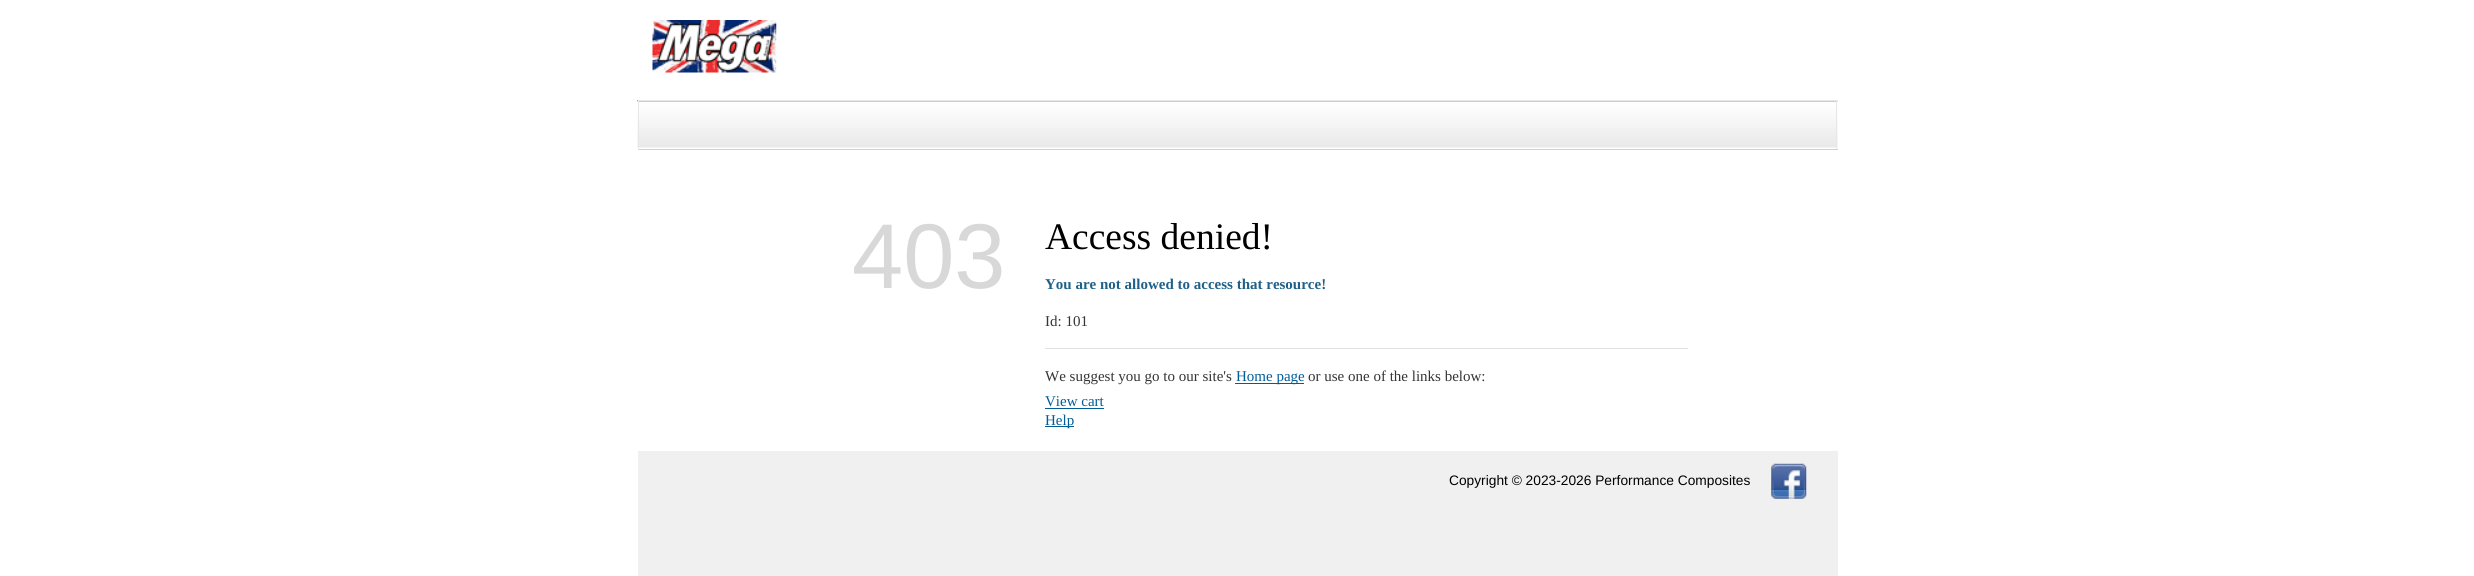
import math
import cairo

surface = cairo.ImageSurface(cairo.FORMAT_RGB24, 2474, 576)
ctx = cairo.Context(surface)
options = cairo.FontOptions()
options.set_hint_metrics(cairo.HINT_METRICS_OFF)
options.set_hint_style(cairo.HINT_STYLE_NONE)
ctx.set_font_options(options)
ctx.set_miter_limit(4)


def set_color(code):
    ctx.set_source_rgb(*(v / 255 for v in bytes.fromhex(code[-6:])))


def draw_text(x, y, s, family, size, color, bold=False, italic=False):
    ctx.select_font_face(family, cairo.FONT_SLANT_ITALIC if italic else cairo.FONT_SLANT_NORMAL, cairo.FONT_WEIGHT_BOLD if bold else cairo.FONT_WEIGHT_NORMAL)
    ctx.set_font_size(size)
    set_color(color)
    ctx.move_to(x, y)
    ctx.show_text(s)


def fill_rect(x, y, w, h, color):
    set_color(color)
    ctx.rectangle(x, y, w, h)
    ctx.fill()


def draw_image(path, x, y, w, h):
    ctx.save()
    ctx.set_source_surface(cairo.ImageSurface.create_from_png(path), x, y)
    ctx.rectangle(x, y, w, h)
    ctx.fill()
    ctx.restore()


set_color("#ffffff")
ctx.paint()
draw_image("assets/img1.png", 652, 20, 125, 53)
draw_image("assets/img2.png", 637, 100, 1201, 48)
fill_rect(638, 100, 1200, 1, "#e7e7e7")
fill_rect(1836, 100, 1, 50, "#e7e7e7")
fill_rect(638, 149, 1200, 1, "#d0d0d0")
fill_rect(638, 100, 1, 50, "#e7e7e7")
draw_text(852, 288, "403", "Liberation Sans", 92, "#d8d8d8")
draw_text(1045, 249, "Access denied!", "Liberation Serif", 37.5, "#000000")
draw_text(1045, 289, "You are not allowed to access that resource!", "Liberation Serif", 15, "#1f6188", bold=True)
draw_text(1045, 326, "Id: 101", "Liberation Serif", 15, "#343434")
fill_rect(1045, 348, 643, 1, "#dfdfdf")
draw_text(1045, 381, "We suggest you go to our site's", "Liberation Serif", 15, "#343434")
fill_rect(1235, 383, 69, 1, "#005d98")
draw_text(1236, 381, "Home page", "Liberation Serif", 15, "#005d98")
draw_text(1308, 381, "or use one of the links below:", "Liberation Serif", 15, "#343434")
draw_text(1045, 406, "View cart", "Liberation Serif", 15, "#005d98")
fill_rect(1045, 408, 59, 1, "#005d98")
fill_rect(1045, 426, 29, 1, "#005d98")
draw_text(1045, 425, "Help", "Liberation Serif", 15, "#005d98")
fill_rect(638, 451, 1200, 125, "#f0f0f0")
draw_text(1449, 485, "Copyright © 2023-2026 Performance Composites", "Liberation Sans", 13.75, "#000000")
draw_image("assets/img3.png", 1771, 463, 36, 36)
surface.write_to_png("output.png")
